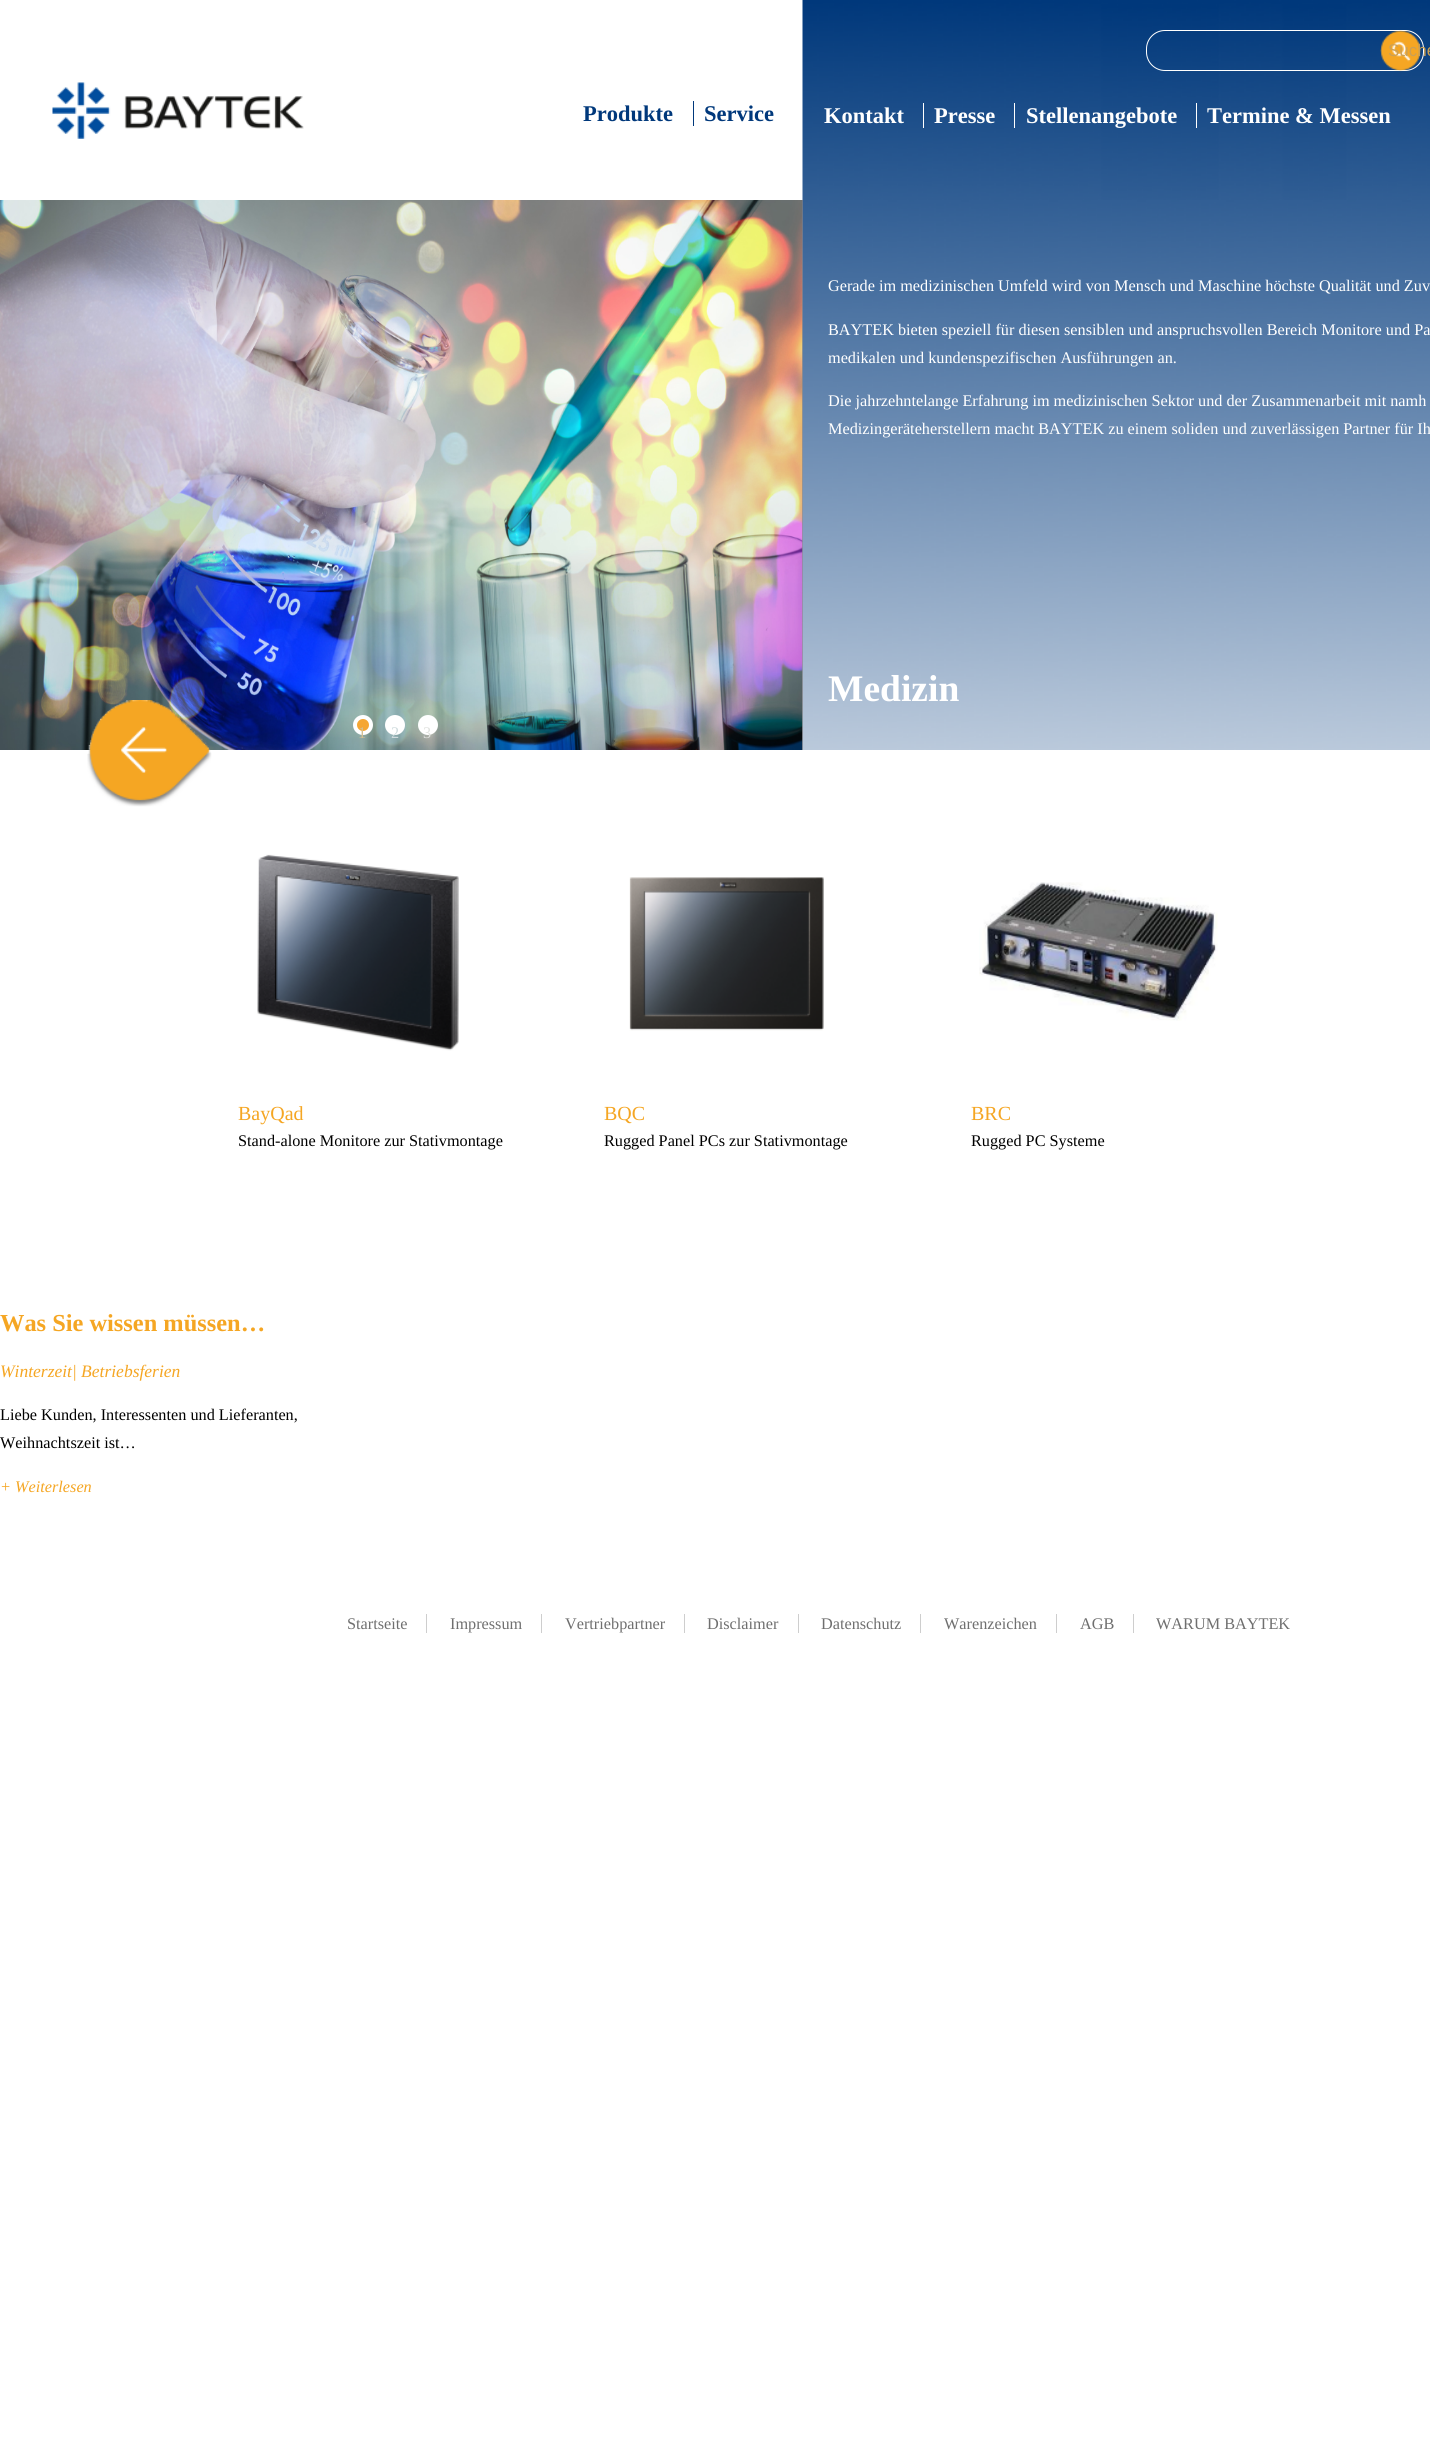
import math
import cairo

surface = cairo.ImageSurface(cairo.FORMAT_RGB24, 1430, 2437)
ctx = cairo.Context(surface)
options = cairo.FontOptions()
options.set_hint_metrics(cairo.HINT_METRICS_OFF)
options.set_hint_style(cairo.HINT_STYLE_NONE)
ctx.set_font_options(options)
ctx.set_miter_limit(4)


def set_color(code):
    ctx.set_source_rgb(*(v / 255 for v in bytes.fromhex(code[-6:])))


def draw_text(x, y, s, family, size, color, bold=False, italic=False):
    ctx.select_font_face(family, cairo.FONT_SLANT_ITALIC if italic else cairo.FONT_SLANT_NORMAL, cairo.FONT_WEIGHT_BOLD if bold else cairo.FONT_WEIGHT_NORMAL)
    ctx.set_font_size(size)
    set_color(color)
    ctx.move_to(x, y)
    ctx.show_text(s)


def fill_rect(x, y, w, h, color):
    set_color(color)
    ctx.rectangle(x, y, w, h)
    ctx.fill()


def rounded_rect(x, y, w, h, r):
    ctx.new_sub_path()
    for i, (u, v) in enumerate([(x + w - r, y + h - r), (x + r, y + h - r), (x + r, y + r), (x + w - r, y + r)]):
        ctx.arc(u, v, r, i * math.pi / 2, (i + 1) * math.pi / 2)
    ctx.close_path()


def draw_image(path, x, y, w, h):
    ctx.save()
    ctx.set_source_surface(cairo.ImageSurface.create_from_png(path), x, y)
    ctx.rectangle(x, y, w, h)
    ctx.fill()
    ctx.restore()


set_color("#ffffff")
ctx.paint()
draw_image("assets/img1.png", 802, 0, 628, 200)
rounded_rect(1146.5, 30.5, 277, 40, 18.5)
set_color("#ffffff")
ctx.set_line_width(1)
ctx.stroke()
draw_image("assets/img2.png", 1380, 30, 42, 42)
draw_text(1388, 56, "Suche", "Liberation Sans", 17, "#cba055")
draw_image("assets/img3.png", 52, 82, 252, 57)
draw_text(583, 121, "Produkte", "Liberation Serif", 22.5, "#00387b", bold=True)
fill_rect(693, 101, 1, 25, "#00387b")
draw_text(704, 121, "Service", "Liberation Serif", 22.5, "#00387b", bold=True)
draw_text(824, 123, "Kontakt", "Liberation Serif", 22.5, "#ffffff", bold=True)
fill_rect(923, 103, 1, 25, "#ffffff")
draw_text(934, 123, "Presse", "Liberation Serif", 22.5, "#ffffff", bold=True)
fill_rect(1014, 103, 1, 25, "#ffffff")
draw_text(1026, 123, "Stellenangebote", "Liberation Serif", 22.5, "#ffffff", bold=True)
fill_rect(1196, 103, 1, 25, "#ffffff")
draw_text(1207, 123, "Termine & Messen", "Liberation Serif", 22.5, "#ffffff", bold=True)
draw_image("assets/img4.png", 802, 200, 628, 550)
draw_text(828, 291, "Gerade im medizinischen Umfeld wird von Mensch und Maschine höchste Qualität und Zuv", "Liberation Serif", 16.25, "#ffffff")
draw_text(828, 335, "BAYTEK bieten speziell für diesen sensiblen und anspruchsvollen Bereich Monitore und Pa", "Liberation Serif", 16.25, "#ffffff")
draw_text(828, 363, "medikalen und kundenspezifischen Ausführungen an.", "Liberation Serif", 16.25, "#ffffff")
draw_text(828, 406, "Die jahrzehntelange Erfahrung im medizinischen Sektor und der Zusammenarbeit mit namh", "Liberation Serif", 16.25, "#ffffff")
draw_text(828, 434, "Medizingeräteherstellern macht BAYTEK zu einem soliden und zuverlässigen Partner für Ih", "Liberation Serif", 16.25, "#ffffff")
draw_text(828, 701, "Medizin", "Liberation Serif", 37.5, "#ffffff", bold=True)
draw_image("assets/img5.png", 0, 200, 803, 550)
draw_image("assets/img6.png", 802, 200, 1, 550)
set_color("#f5a633")
ctx.arc(363, 725, 8, 0, 2 * math.pi)
ctx.fill_preserve()
set_color("#ffffff")
ctx.set_line_width(4)
ctx.stroke()
draw_text(358, 738, "1", "Liberation Serif", 16.25, "#d3be91")
set_color("#ffffff")
ctx.new_path()
ctx.arc(395, 725, 8, 0, 2 * math.pi)
ctx.fill_preserve()
ctx.stroke()
draw_text(391, 738, "2", "Liberation Serif", 16.25, "#cfdbdd")
set_color("#ffffff")
ctx.new_path()
ctx.arc(428, 725, 8, 0, 2 * math.pi)
ctx.fill_preserve()
ctx.stroke()
draw_text(423, 738, "3", "Liberation Serif", 16.25, "#e0e2df")
draw_image("assets/img7.png", 87, 700, 125, 107)
draw_image("assets/img8.png", 257, 854, 202, 197)
draw_text(238, 1120, "BayQad", "Liberation Serif", 20, "#f5a623")
draw_text(238, 1146, "Stand-alone Monitore zur Stativmontage", "Liberation Serif", 16.25, "#000000")
draw_image("assets/img9.png", 629, 877, 195, 154)
draw_text(604, 1120, "BQC", "Liberation Serif", 20, "#f5a623")
draw_text(604, 1146, "Rugged Panel PCs zur Stativmontage", "Liberation Serif", 16.25, "#000000")
draw_image("assets/img10.png", 979, 882, 239, 139)
draw_text(971, 1120, "BRC", "Liberation Serif", 20, "#f5a623")
draw_text(971, 1146, "Rugged PC Systeme", "Liberation Serif", 16.25, "#000000")
draw_text(0, 1331, "Was Sie wissen müssen…", "Liberation Serif", 24.4, "#f5a623", bold=True)
draw_text(0, 1377, "Winterzeit| Betriebsferien", "Liberation Serif", 17.5, "#f5a623", italic=True)
draw_text(0, 1420, "Liebe Kunden, Interessenten und Lieferanten,", "Liberation Serif", 16.25, "#000000")
draw_text(0, 1448, "Weihnachtszeit ist…", "Liberation Serif", 16.25, "#000000")
draw_text(0, 1492, "+ Weiterlesen", "Liberation Serif", 16.25, "#f5a623", italic=True)
draw_text(347, 1629, "Startseite", "Liberation Serif", 16.25, "#6f6f6f")
fill_rect(426, 1614, 1, 19, "#cecece")
draw_text(450, 1629, "Impressum", "Liberation Serif", 16.25, "#6f6f6f")
fill_rect(541, 1614, 1, 19, "#cecece")
draw_text(565, 1629, "Vertriebpartner", "Liberation Serif", 16.25, "#6f6f6f")
fill_rect(684, 1614, 1, 19, "#cecece")
draw_text(707, 1629, "Disclaimer", "Liberation Serif", 16.25, "#6f6f6f")
fill_rect(798, 1614, 1, 19, "#cecece")
draw_text(821, 1629, "Datenschutz", "Liberation Serif", 16.25, "#6f6f6f")
fill_rect(920, 1614, 1, 19, "#cecece")
draw_text(944, 1629, "Warenzeichen", "Liberation Serif", 16.25, "#6f6f6f")
fill_rect(1056, 1614, 1, 19, "#cecece")
draw_text(1080, 1629, "AGB", "Liberation Serif", 16.25, "#6f6f6f")
fill_rect(1133, 1614, 1, 19, "#cecece")
draw_text(1156, 1629, "WARUM BAYTEK", "Liberation Serif", 16.25, "#6f6f6f")
surface.write_to_png("output.png")
